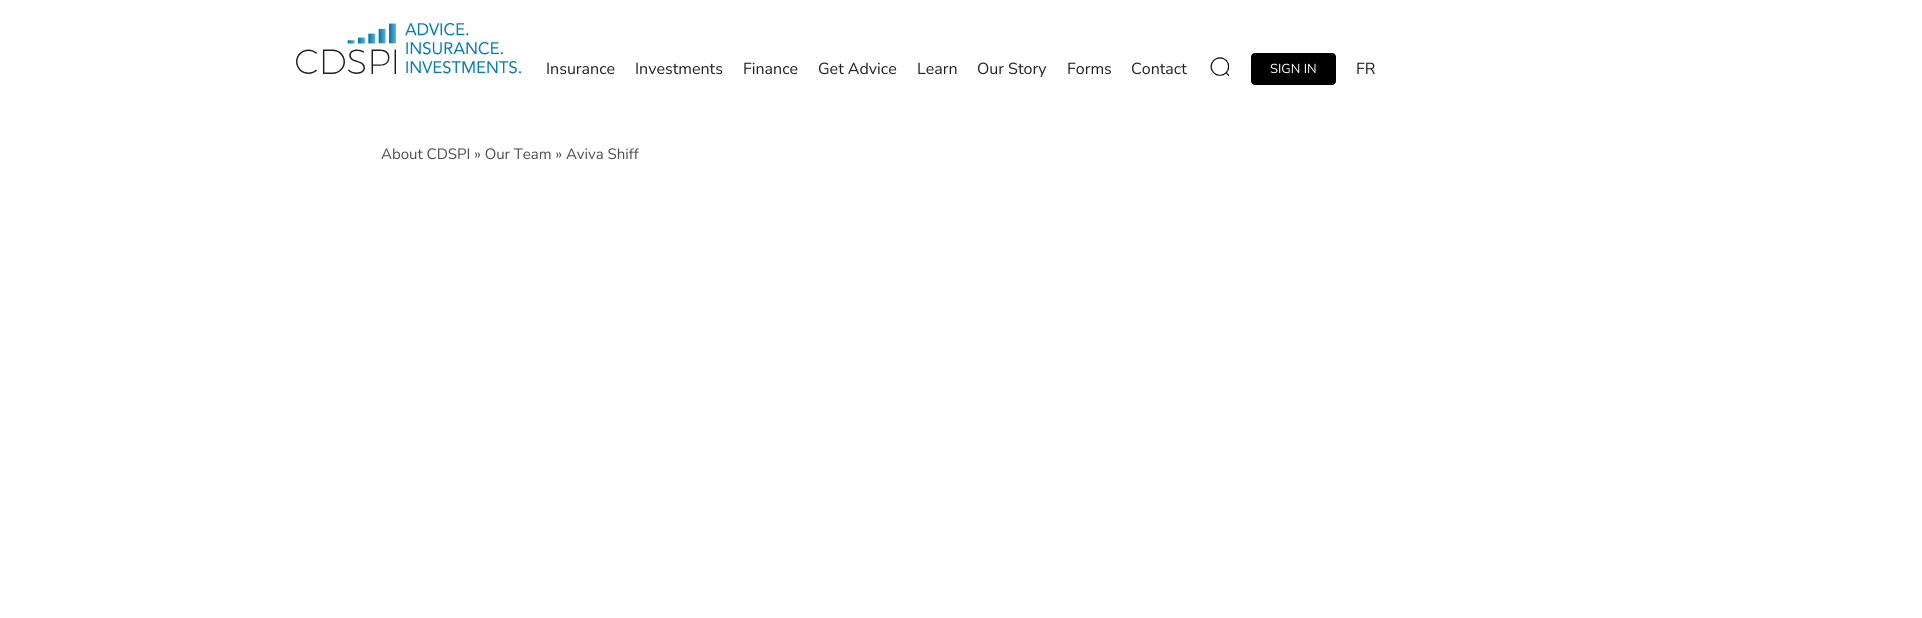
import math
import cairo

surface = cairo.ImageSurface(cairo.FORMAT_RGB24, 1922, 618)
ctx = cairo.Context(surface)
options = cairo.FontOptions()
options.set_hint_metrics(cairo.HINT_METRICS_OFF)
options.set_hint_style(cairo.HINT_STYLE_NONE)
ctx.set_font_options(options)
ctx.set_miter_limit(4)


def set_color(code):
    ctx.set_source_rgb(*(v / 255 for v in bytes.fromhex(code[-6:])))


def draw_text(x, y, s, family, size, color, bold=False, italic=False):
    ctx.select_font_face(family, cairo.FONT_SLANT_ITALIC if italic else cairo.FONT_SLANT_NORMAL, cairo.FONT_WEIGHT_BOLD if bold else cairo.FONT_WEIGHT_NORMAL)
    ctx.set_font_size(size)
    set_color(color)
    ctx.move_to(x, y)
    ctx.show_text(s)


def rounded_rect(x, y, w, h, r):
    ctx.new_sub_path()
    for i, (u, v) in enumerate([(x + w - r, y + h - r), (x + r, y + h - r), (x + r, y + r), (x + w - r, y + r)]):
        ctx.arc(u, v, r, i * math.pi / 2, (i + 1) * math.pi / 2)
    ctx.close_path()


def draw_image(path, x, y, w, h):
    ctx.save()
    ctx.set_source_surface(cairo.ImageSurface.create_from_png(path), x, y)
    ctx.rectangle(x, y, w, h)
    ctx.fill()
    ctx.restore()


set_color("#ffffff")
ctx.paint()
draw_image("assets/img1.png", 296, 23, 225, 51)
draw_text(546, 74, "Insurance", "Nunito Sans", 16, "#222222")
draw_text(635, 74, "Investments", "Nunito Sans", 16, "#222222")
draw_text(743, 74, "Finance", "Nunito Sans", 16, "#222222")
draw_text(818, 74, "Get Advice", "Nunito Sans", 16, "#222222")
draw_text(917, 74, "Learn", "Nunito Sans", 16, "#222222")
draw_text(977, 74, "Our Story", "Nunito Sans", 16, "#222222")
draw_text(1067, 74, "Forms", "Nunito Sans", 16, "#222222")
draw_text(1131, 74, "Contact", "Nunito Sans", 16, "#222222")
draw_image("assets/img2.png", 1210, 57, 19, 20)
set_color("#000000")
rounded_rect(1251.5, 53.5, 84, 31, 3.5)
ctx.fill_preserve()
ctx.set_line_width(1)
ctx.stroke()
draw_text(1270, 73, "SIGN IN", "Nunito Sans", 13, "#ffffff")
draw_text(1356, 74, "FR", "Nunito Sans", 16, "#222222")
draw_text(381, 159, "About CDSPI » Our Team » Aviva Shiff", "Nunito Sans", 15, "#4d4d4d")
surface.write_to_png("output.png")
